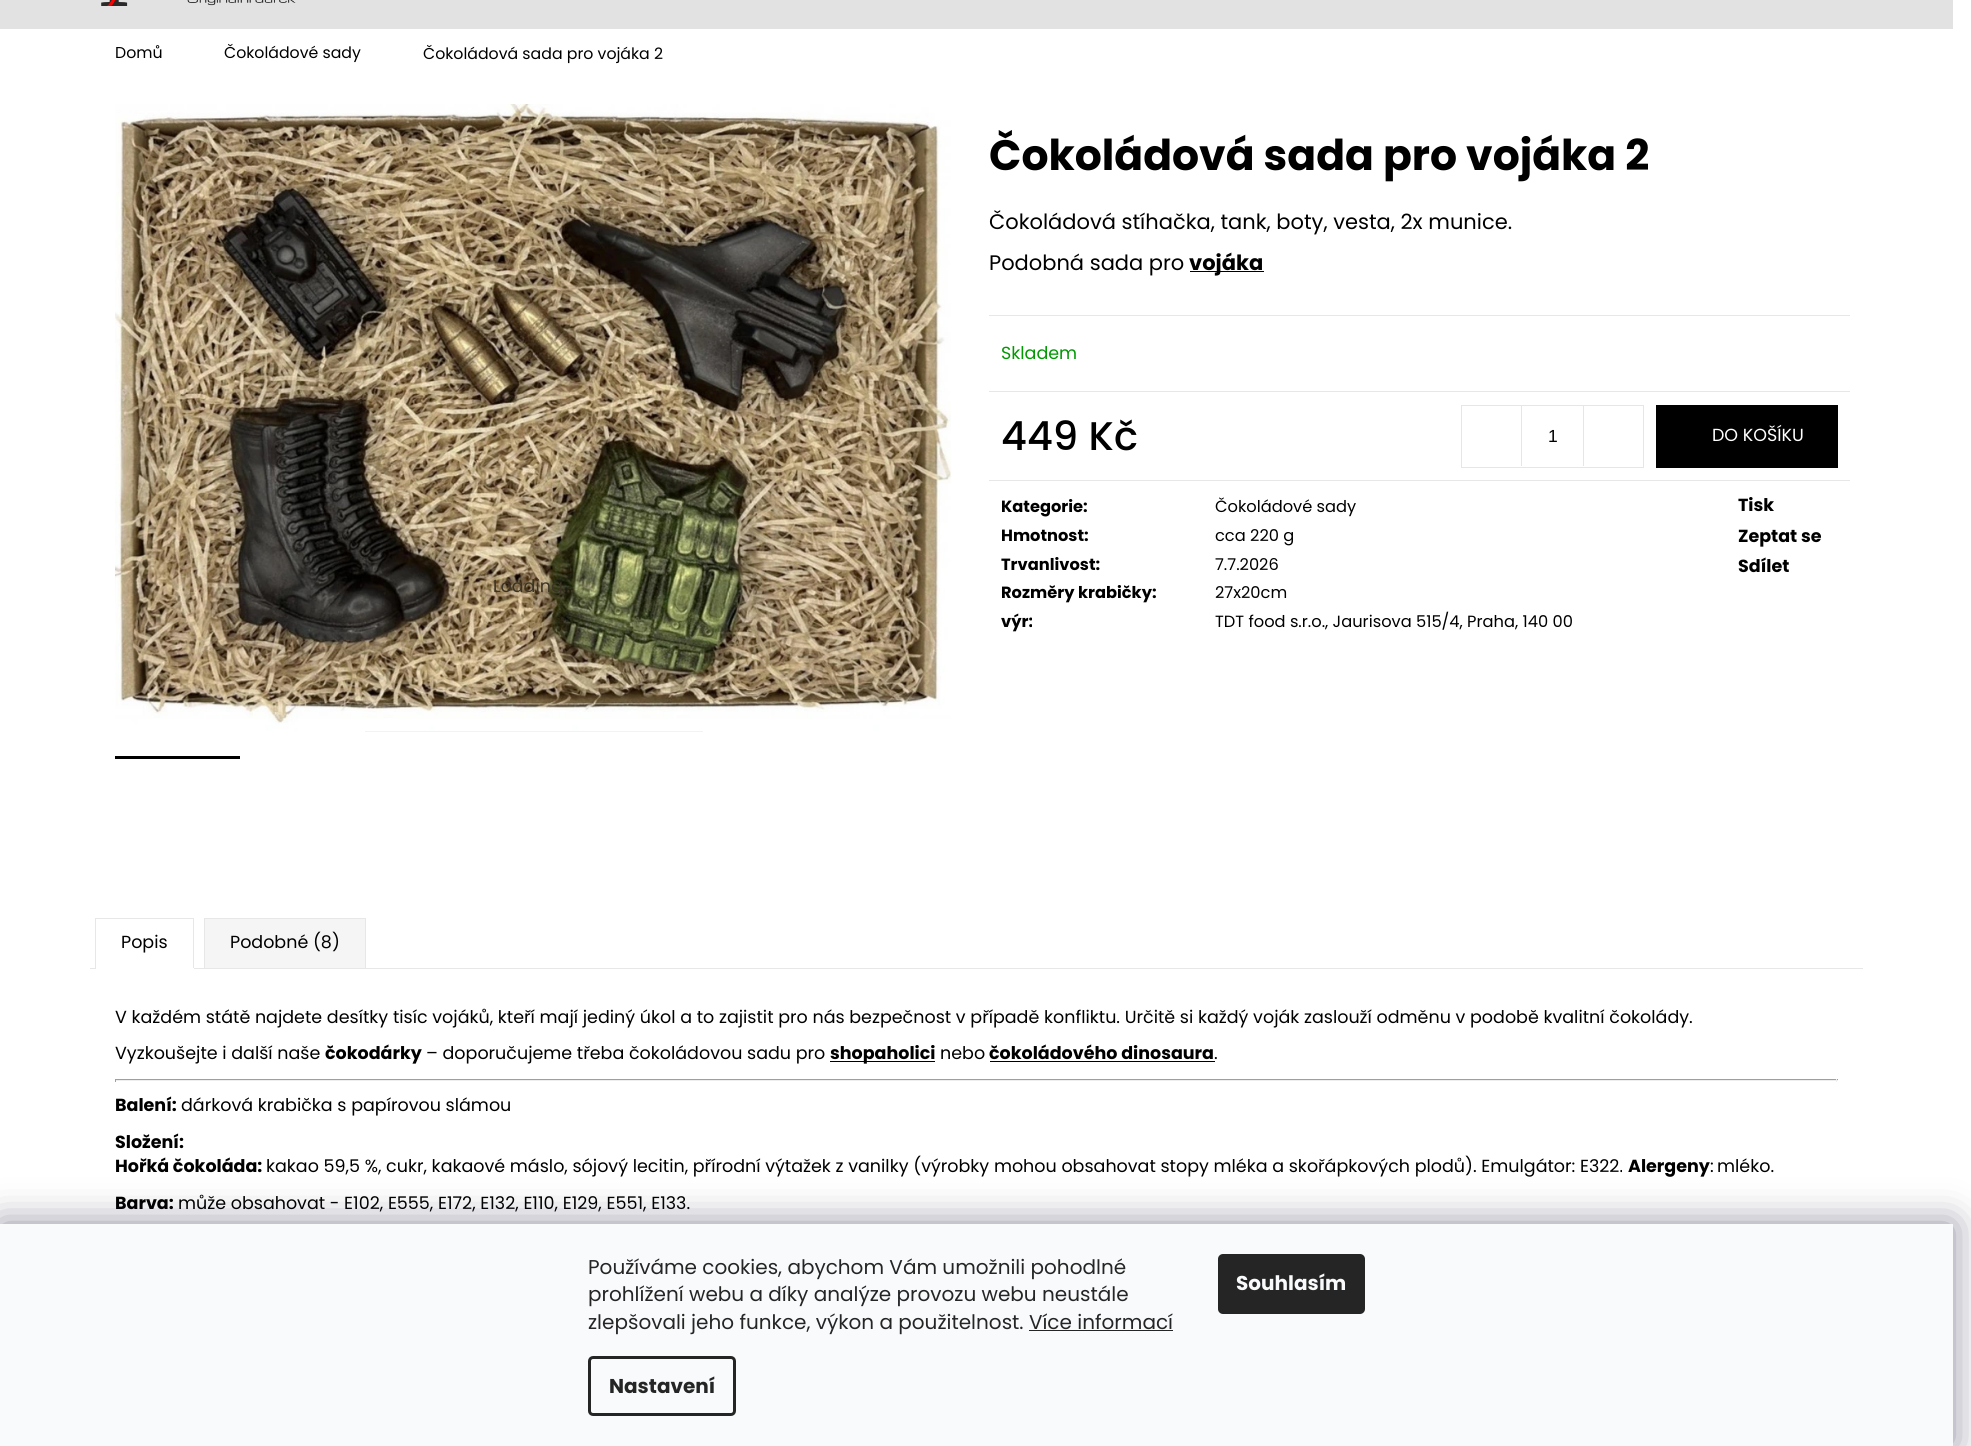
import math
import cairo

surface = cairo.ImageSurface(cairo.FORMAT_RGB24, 1971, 1446)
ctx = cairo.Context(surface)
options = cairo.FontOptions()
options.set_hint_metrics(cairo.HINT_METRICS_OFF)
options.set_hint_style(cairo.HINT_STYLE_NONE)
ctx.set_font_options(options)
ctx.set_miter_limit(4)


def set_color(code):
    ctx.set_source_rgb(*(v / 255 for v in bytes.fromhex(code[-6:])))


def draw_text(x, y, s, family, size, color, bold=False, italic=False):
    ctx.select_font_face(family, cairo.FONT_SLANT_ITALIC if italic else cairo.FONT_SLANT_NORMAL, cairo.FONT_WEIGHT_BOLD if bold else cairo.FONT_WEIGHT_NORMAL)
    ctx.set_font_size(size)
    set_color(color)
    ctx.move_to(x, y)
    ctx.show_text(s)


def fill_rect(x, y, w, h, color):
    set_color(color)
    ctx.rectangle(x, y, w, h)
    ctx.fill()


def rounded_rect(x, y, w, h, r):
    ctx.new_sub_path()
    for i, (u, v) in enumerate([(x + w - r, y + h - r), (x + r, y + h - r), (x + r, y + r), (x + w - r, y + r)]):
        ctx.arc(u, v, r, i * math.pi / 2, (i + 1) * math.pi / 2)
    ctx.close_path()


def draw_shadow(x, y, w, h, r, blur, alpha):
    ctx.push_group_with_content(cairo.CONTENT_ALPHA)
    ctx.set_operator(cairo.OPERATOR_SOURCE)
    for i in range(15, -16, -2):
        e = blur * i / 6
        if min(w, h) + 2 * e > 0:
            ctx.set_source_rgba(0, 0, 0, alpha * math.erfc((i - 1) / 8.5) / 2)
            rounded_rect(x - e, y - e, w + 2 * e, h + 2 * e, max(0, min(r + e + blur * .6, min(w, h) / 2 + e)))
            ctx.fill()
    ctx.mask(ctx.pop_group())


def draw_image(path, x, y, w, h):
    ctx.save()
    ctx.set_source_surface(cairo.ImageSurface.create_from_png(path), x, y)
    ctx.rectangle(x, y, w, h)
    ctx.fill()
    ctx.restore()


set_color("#ffffff")
ctx.paint()
fill_rect(0, 0, 1953, 29, "#e2e2e2")
draw_image("assets/img1.png", 101, 0, 195, 6)
draw_text(115, 58, "Domů", "Poppins", 15.75, "#000000")
draw_text(224, 58, "Čokoládové sady", "Poppins", 15.75, "#000000")
draw_text(423, 59, "Čokoládová sada pro vojáka 2", "Poppins", 15.75, "#000000")
fill_rect(365, 731, 338, 1, "#e6e6e6")
draw_image("assets/img2.png", 115, 104, 837, 628)
draw_text(493, 592, "Loading...", "Poppins", 17.5, "#3b3424")
fill_rect(115, 756, 125, 3, "#000000")
draw_text(989, 170, "Čokoládová sada pro vojáka 2", "Poppins", 42.5, "#000000", bold=True)
draw_text(989, 229, "Čokoládová stíhačka, tank, boty, vesta, 2x munice.", "Poppins", 21, "#000000")
draw_text(989, 270, "Podobná sada pro", "Poppins", 21, "#000000")
fill_rect(1190, 271, 74, 1, "#000000")
draw_text(1189, 270, "vojáka", "Poppins", 21, "#000000", bold=True)
fill_rect(989, 315, 861, 1, "#e7e7e7")
fill_rect(989, 391, 861, 1, "#e7e7e7")
draw_text(1001, 359, "Skladem", "Poppins", 17.5, "#009901")
fill_rect(989, 480, 861, 1, "#e7e7e7")
draw_text(1001, 450, "449 Kč", "Poppins Medium", 40, "#000000")
ctx.rectangle(1461.5, 405.5, 182, 62)
set_color("#e6e6e6")
ctx.set_line_width(1)
ctx.stroke()
fill_rect(1521, 406, 1, 60, "#e6e6e6")
draw_text(1548, 442, "1", "Liberation Sans", 17.5, "#000000")
fill_rect(1583, 406, 1, 60, "#e6e6e6")
fill_rect(1656, 405, 182, 63, "#000000")
draw_text(1712, 441, "DO KOŠÍKU", "Poppins", 17.5, "#ffffff")
draw_text(1001, 512, "Kategorie:", "Poppins", 16.25, "#000000", bold=True)
draw_text(1215, 512, "Čokoládové sady", "Poppins", 16.25, "#000000")
draw_text(1001, 541, "Hmotnost:", "Poppins", 16.25, "#000000", bold=True)
draw_text(1215, 541, "cca 220 g", "Poppins", 16.25, "#000000")
draw_text(1001, 570, "Trvanlivost:", "Poppins", 16.25, "#000000", bold=True)
draw_text(1215, 570, "7.7.2026", "Poppins", 16.25, "#000000")
draw_text(1001, 598, "Rozměry krabičky:", "Poppins", 16.25, "#000000", bold=True)
draw_text(1215, 598, "27x20cm", "Poppins", 16.25, "#000000")
draw_text(1001, 627, "výr:", "Poppins", 16.25, "#000000", bold=True)
draw_text(1215, 627, "TDT food s.r.o., Jaurisova 515/4, Praha, 140 00", "Poppins", 16.25, "#000000")
draw_text(1738, 511, "Tisk", "Poppins", 17.5, "#000000", bold=True)
draw_text(1738, 542, "Zeptat se", "Poppins", 17.5, "#000000", bold=True)
draw_text(1738, 572, "Sdílet", "Poppins", 17.5, "#000000", bold=True)
fill_rect(90, 968, 1773, 1, "#e7e7e7")
fill_rect(95, 918, 99, 1, "#e7e7e7")
fill_rect(193, 918, 1, 51, "#e7e7e7")
fill_rect(95, 968, 99, 1, "#ffffff")
fill_rect(95, 918, 1, 51, "#e7e7e7")
draw_text(121, 948, "Popis", "Poppins", 17.5, "#000000")
set_color("#f5f5f5")
ctx.rectangle(204.5, 918.5, 161, 50)
ctx.fill_preserve()
set_color("#e7e7e7")
ctx.stroke()
draw_text(230, 948, "Podobné (8)", "Poppins", 17.5, "#000000")
draw_text(115, 1023, "V každém státě najdete desítky tisíc vojáků, kteří mají jediný úkol a to zajistit pro nás bezpečnost v případě konfliktu. Určitě si každý voják zaslouží odměnu v podobě kvalitní čokolády.", "Poppins", 17.5, "#000000")
draw_text(115, 1059, "Vyzkoušejte i další naše", "Poppins", 17.5, "#000000")
draw_text(325, 1059, "čokodárky", "Poppins", 17.5, "#000000", bold=True)
draw_text(426, 1059, "– doporučujeme třeba čokoládovou sadu pro", "Poppins", 17.5, "#000000")
fill_rect(830, 1061, 105, 1, "#000000")
draw_text(830, 1059, "shopaholici", "Poppins", 17.5, "#000000", bold=True)
draw_text(940, 1059, "nebo", "Poppins", 17.5, "#000000")
draw_text(989, 1059, "čokoládového dinosaura", "Poppins", 17.5, "#000000", bold=True)
fill_rect(990, 1061, 225, 1, "#000000")
draw_text(1214, 1059, ".", "Poppins", 17.5, "#000000")
fill_rect(115, 1079, 1723, 1, "#9f9f9f")
fill_rect(1836, 1079, 1, 3, "#eeeeee")
fill_rect(115, 1080, 1723, 1, "#eeeeee")
fill_rect(115, 1079, 1, 3, "#9f9f9f")
draw_text(115, 1111, "Balení:", "Poppins", 17.5, "#000000", bold=True)
draw_text(181, 1111, "dárková krabička s papírovou slámou", "Poppins", 17.5, "#000000")
draw_text(115, 1148, "Složení:", "Poppins", 17.5, "#000000", bold=True)
draw_text(115, 1172, "Hořká čokoláda:", "Poppins", 17.5, "#000000", bold=True)
draw_text(266, 1172, "kakao 59,5 %, cukr, kakaové máslo, sójový lecitin, přírodní výtažek z vanilky (výrobky mohou obsahovat stopy mléka a skořápkových plodů). Emulgátor: E322.", "Poppins", 17.5, "#000000")
draw_text(1628, 1172, "Alergeny", "Poppins", 17.5, "#000000", bold=True)
draw_text(1710, 1172, ":", "Poppins", 17.5, "#000000")
draw_text(1717, 1172, "mléko.", "Poppins", 17.5, "#000000")
draw_text(115, 1209, "Barva:", "Poppins", 17.5, "#000000", bold=True)
draw_text(178, 1209, "může obsahovat - E102, E555, E172, E132, E110, E129, E551, E133.", "Poppins", 17.5, "#000000")
set_color("#1b1939")
draw_shadow(0, 1224, 1953, 222, 0, 19, 0.5)
fill_rect(0, 1224, 1953, 222, "#f8fafb")
draw_text(588, 1274, "Používáme cookies, abychom Vám umožnili pohodlné", "Poppins", 20, "#252525")
draw_text(588, 1301, "prohlížení webu a díky analýze provozu webu neustále", "Poppins", 20, "#252525")
draw_text(588, 1329, "zlepšovali jeho funkce, výkon a použitelnost. Více informací", "Poppins", 20, "#252525")
fill_rect(1029, 1330, 144, 1, "#252525")
rounded_rect(589.5, 1357.5, 145, 57, 3.5)
ctx.set_line_width(3)
ctx.stroke()
draw_text(609, 1393, "Nastavení", "Poppins", 20, "#252525", bold=True)
rounded_rect(1218, 1254, 147, 60, 5)
ctx.fill()
draw_text(1236, 1290, "Souhlasím", "Poppins", 20, "#f8fafb", bold=True)
surface.write_to_png("output.png")
